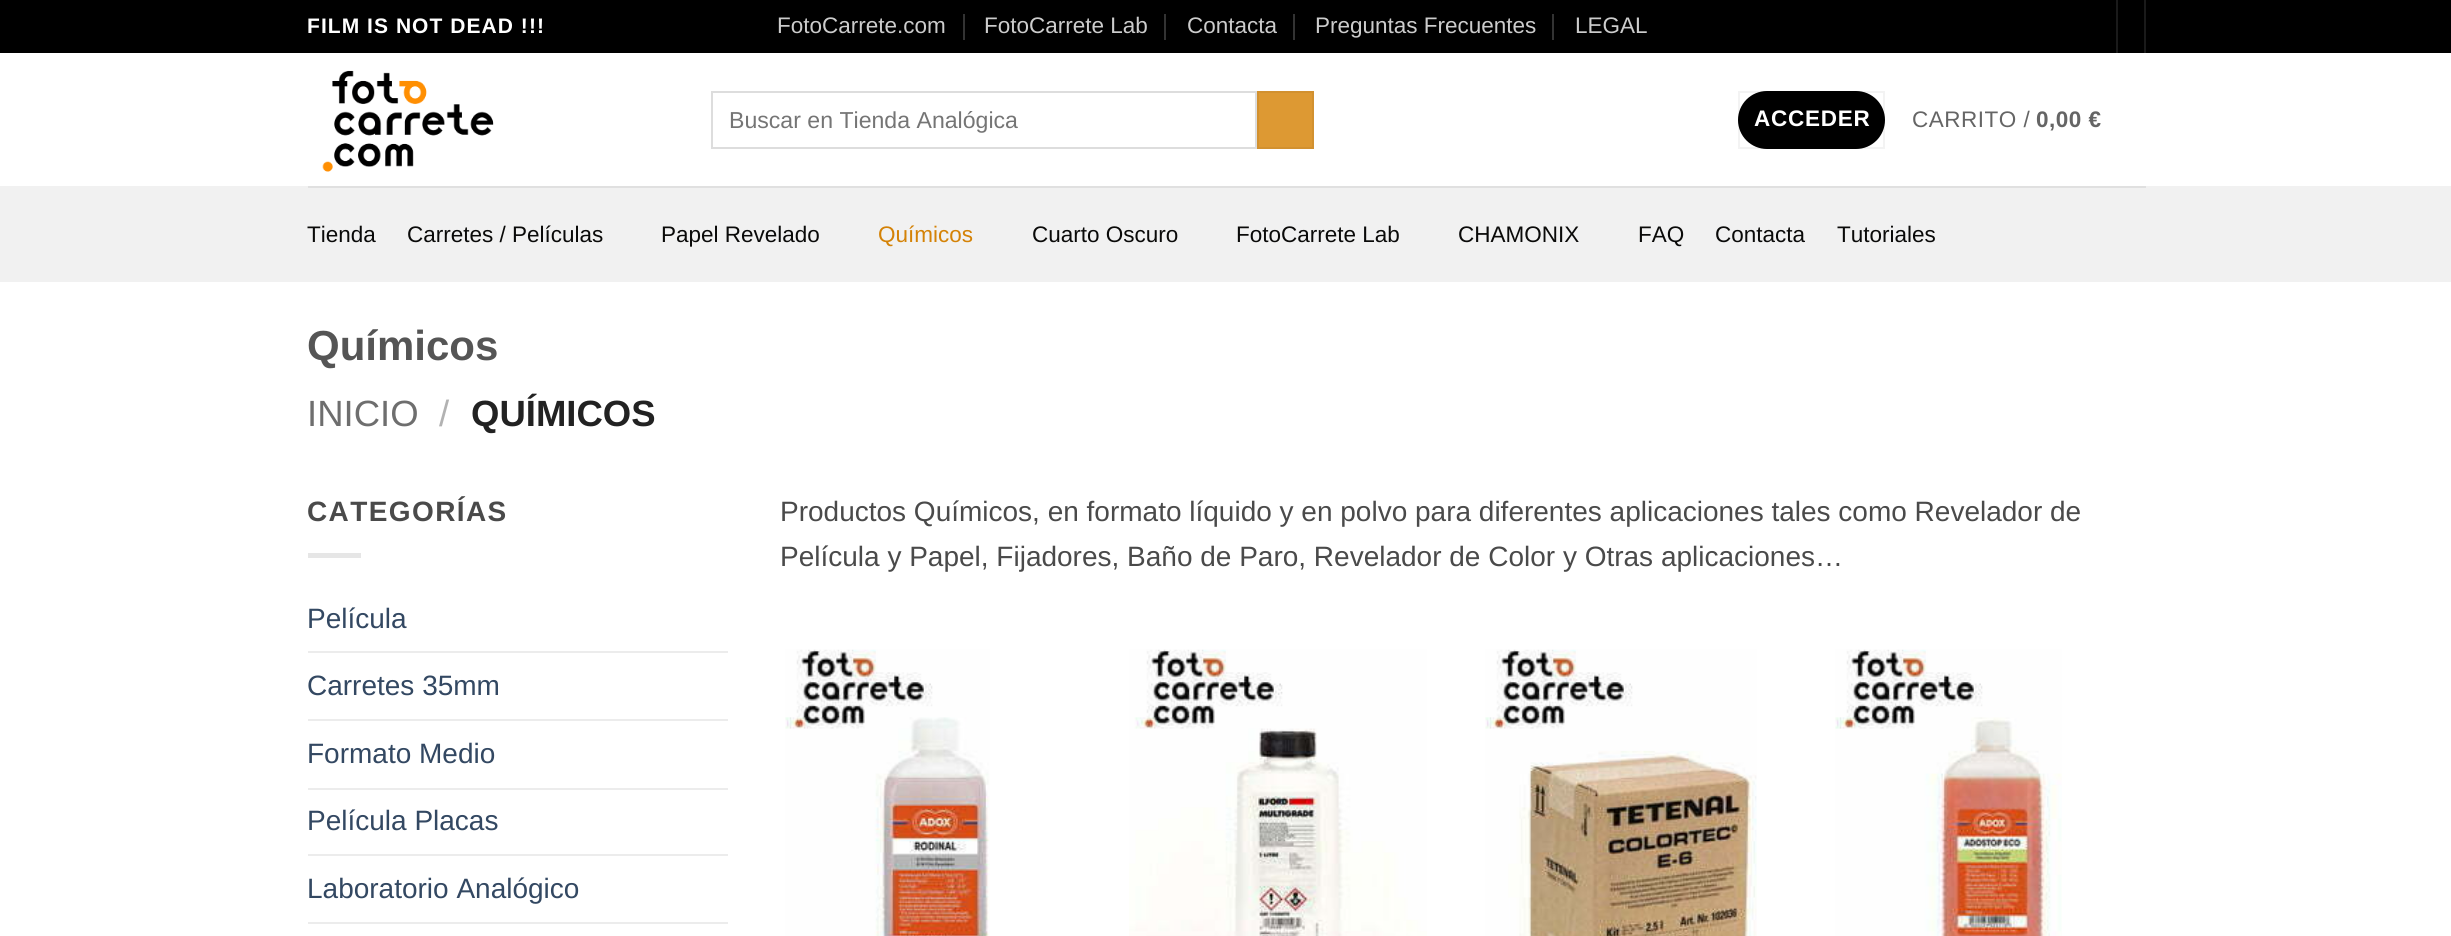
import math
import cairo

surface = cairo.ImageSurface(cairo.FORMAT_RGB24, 2451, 936)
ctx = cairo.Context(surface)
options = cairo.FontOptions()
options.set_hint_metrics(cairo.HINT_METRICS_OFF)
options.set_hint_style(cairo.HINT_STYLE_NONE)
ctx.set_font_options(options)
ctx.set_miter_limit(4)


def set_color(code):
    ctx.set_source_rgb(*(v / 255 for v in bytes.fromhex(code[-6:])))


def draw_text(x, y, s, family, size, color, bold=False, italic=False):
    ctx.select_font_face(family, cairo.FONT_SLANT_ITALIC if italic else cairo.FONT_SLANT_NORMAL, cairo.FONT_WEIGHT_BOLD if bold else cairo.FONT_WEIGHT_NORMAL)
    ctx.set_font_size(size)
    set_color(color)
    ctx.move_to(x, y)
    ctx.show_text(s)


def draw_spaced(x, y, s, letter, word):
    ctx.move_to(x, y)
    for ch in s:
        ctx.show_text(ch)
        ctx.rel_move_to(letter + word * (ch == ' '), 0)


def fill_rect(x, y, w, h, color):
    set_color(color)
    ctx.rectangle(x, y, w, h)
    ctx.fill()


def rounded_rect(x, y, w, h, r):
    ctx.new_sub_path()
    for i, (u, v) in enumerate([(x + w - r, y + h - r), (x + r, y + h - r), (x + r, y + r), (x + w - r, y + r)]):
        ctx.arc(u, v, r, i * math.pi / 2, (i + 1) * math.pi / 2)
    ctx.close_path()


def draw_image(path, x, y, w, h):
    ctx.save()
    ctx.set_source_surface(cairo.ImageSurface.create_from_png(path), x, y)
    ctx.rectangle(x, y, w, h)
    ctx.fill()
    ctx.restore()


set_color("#ffffff")
ctx.paint()
fill_rect(0, 0, 2451, 53, "#000000")
ctx.select_font_face("Liberation Sans", cairo.FONT_SLANT_NORMAL, cairo.FONT_WEIGHT_BOLD)
ctx.set_font_size(21)
set_color("#ffffff")
draw_spaced(307, 33, "FILM IS NOT DEAD !!!", 1.05, 0)
draw_text(777, 33, "FotoCarrete.com", "Liberation Sans", 22.5, "#cccccc")
fill_rect(963, 14, 2, 26, "#333333")
draw_text(984, 33, "FotoCarrete Lab", "Liberation Sans", 22.5, "#cccccc")
fill_rect(1164, 14, 2, 26, "#333333")
draw_text(1187, 33, "Contacta", "Liberation Sans", 22.5, "#cccccc")
fill_rect(1293, 14, 2, 26, "#333333")
draw_text(1315, 33, "Preguntas Frecuentes", "Liberation Sans", 22.5, "#cccccc")
fill_rect(1552, 14, 2, 26, "#333333")
draw_text(1575, 33, "LEGAL", "Liberation Sans", 22.5, "#cccccc")
fill_rect(2116, 0, 2, 53, "#1a1a1a")
fill_rect(2144, 0, 2, 53, "#1a1a1a")
draw_image("assets/img1.png", 322, 70, 172, 102)
ctx.rectangle(712, 92, 544, 56)
set_color("#dddddd")
ctx.stroke()
draw_text(729, 128, "Buscar en Tienda Analógica", "Liberation Sans", 23.1, "#757575")
set_color("#dd9933")
ctx.rectangle(1258, 92, 55, 56)
ctx.fill_preserve()
set_color("#d29130")
ctx.stroke()
set_color("#000000")
rounded_rect(1738, 91, 147, 58, 29)
ctx.fill()
ctx.rectangle(1739, 92, 145, 56)
ctx.set_source_rgba(0, 0, 0, 0.05)
ctx.stroke()
ctx.select_font_face("Liberation Sans", cairo.FONT_SLANT_NORMAL, cairo.FONT_WEIGHT_BOLD)
ctx.set_font_size(22.5)
set_color("#ffffff")
draw_spaced(1754, 126, "ACCEDER", 0.75, 0)
ctx.select_font_face("Liberation Sans")
set_color("#656565")
draw_spaced(1912, 127, "CARRITO /", 0.5, 0)
ctx.select_font_face("Liberation Sans", cairo.FONT_SLANT_NORMAL, cairo.FONT_WEIGHT_BOLD)
draw_spaced(2036, 127, "0,00 €", 0.5, 0)
fill_rect(0, 186, 2451, 96, "#f1f1f1")
fill_rect(308, 186, 1838, 2, "#e0e0e0")
draw_text(307, 242, "Tienda", "Liberation Sans", 22.5, "#0a0a09")
draw_text(407, 242, "Carretes / Películas", "Liberation Sans", 22.5, "#0a0a09")
draw_text(661, 242, "Papel Revelado", "Liberation Sans", 22.5, "#0a0a09")
draw_text(878, 242, "Químicos", "Liberation Sans", 22.5, "#d48206")
draw_text(1032, 242, "Cuarto Oscuro", "Liberation Sans", 22.5, "#0a0a09")
draw_text(1236, 242, "FotoCarrete Lab", "Liberation Sans", 22.5, "#0a0a09")
draw_text(1458, 242, "CHAMONIX", "Liberation Sans", 22.5, "#0a0a09")
draw_text(1638, 242, "FAQ", "Liberation Sans", 22.5, "#0a0a09")
draw_text(1715, 242, "Contacta", "Liberation Sans", 22.5, "#0a0a09")
draw_text(1837, 242, "Tutoriales", "Liberation Sans", 22.5, "#0a0a09")
draw_text(307, 360, "Químicos", "Liberation Sans", 42, "#555555", bold=True)
draw_text(307, 426, "INICIO", "Liberation Sans", 36.5, "#6e6e6e")
draw_text(439, 426, "/", "Liberation Sans", 36.5, "#b2b2b2")
draw_text(471, 426, "QUÍMICOS", "Liberation Sans", 36.5, "#222222", bold=True)
ctx.set_font_size(28)
set_color("#4a4a4a")
draw_spaced(307, 521, "CATEGORÍAS", 1.4, 0)
fill_rect(308, 553, 53, 5, "#e6e6e6")
draw_text(307, 628, "Película", "Liberation Sans", 28, "#334862")
fill_rect(308, 651, 420, 2, "#ececec")
draw_text(307, 695, "Carretes 35mm", "Liberation Sans", 28, "#334862")
fill_rect(308, 719, 420, 2, "#ececec")
draw_text(307, 763, "Formato Medio", "Liberation Sans", 28, "#334862")
fill_rect(308, 788, 420, 2, "#ececec")
draw_text(307, 830, "Película Placas", "Liberation Sans", 28, "#334862")
fill_rect(308, 854, 420, 2, "#ececec")
draw_text(307, 898, "Laboratorio Analógico", "Liberation Sans", 28, "#334862")
fill_rect(308, 922, 420, 2, "#ececec")
draw_text(780, 521, "Productos Químicos, en formato líquido y en polvo para diferentes aplicaciones tales como Revelador de", "Liberation Sans", 28, "#4a4a4a")
draw_text(780, 566, "Película y Papel, Fijadores, Baño de Paro, Revelador de Color y Otras aplicaciones…", "Liberation Sans", 28, "#4a4a4a")
draw_image("assets/img2.png", 785, 649, 205, 287)
draw_image("assets/img3.png", 1129, 649, 298, 287)
draw_image("assets/img4.png", 1485, 649, 272, 287)
draw_image("assets/img5.png", 1835, 649, 227, 287)
surface.write_to_png("output.png")
